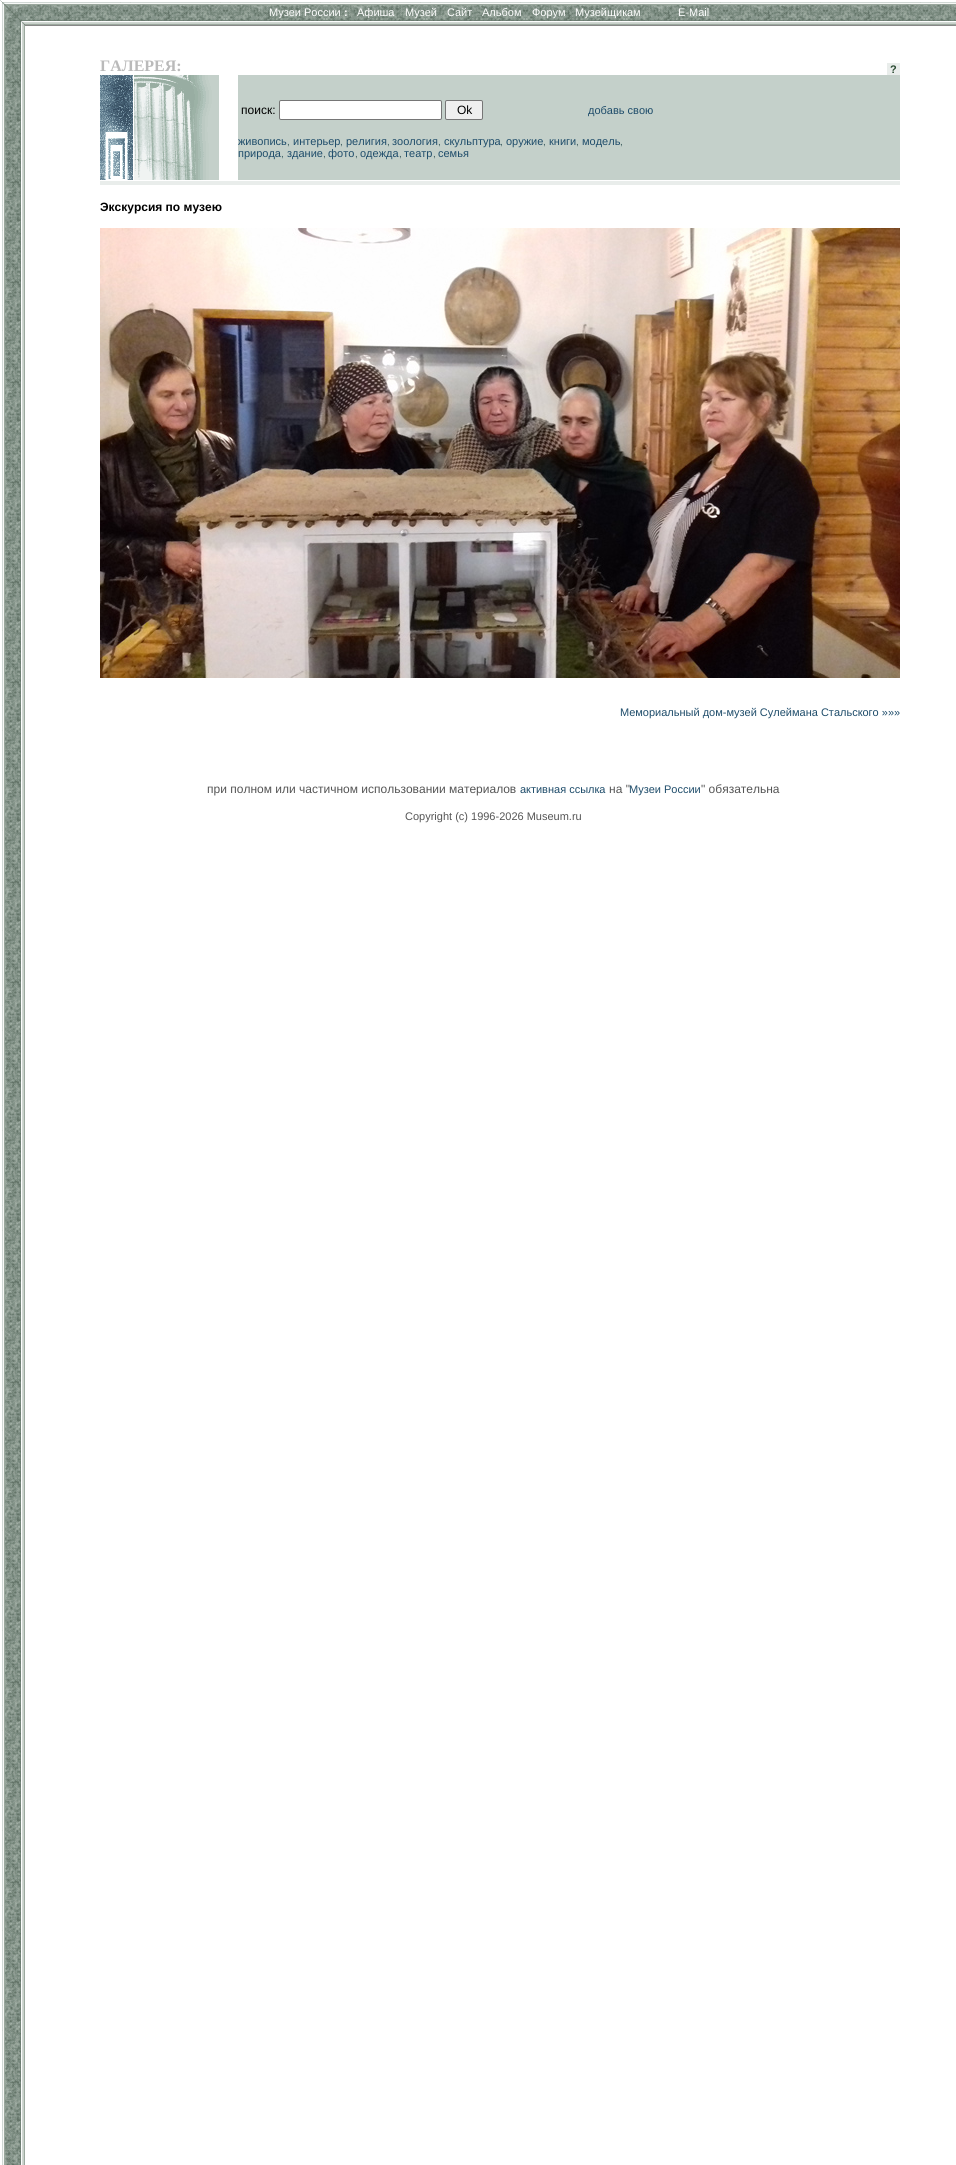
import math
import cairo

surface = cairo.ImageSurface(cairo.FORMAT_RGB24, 956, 2165)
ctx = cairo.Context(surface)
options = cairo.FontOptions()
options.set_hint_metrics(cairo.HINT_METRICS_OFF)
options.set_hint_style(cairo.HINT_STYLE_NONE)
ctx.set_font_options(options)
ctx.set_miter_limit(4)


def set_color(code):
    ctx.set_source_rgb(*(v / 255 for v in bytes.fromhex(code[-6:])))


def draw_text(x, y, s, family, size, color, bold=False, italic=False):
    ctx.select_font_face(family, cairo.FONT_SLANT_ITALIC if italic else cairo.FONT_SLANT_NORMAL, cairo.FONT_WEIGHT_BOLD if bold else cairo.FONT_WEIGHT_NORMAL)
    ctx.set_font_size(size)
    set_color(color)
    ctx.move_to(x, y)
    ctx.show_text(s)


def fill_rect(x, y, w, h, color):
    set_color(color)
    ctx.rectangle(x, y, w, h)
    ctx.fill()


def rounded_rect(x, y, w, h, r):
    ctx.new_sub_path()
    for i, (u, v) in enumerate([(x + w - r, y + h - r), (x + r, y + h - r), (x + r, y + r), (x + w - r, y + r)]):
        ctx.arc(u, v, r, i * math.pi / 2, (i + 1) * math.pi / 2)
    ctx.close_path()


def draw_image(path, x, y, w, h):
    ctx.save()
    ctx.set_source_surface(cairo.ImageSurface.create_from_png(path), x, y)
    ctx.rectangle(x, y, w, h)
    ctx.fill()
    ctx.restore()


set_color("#ffffff")
ctx.paint()
draw_image("assets/img1.png", 2, 25, 23, 2140)
draw_image("assets/img2.png", 0, 0, 25, 25)
draw_image("assets/img3.png", 25, 0, 931, 25)
draw_text(269, 16, "Музеи России", "Liberation Sans", 11, "#ffffff")
draw_text(344, 16, ":", "Liberation Sans", 11, "#ffffff", bold=True)
draw_text(357, 16, "Афиша", "Liberation Sans", 11, "#ffffff")
draw_text(405, 16, "Музей", "Liberation Sans", 11, "#ffffff")
draw_text(447, 16, "Сайт", "Liberation Sans", 11, "#ffffff")
draw_text(482, 16, "Альбом", "Liberation Sans", 11, "#ffffff")
draw_text(532, 16, "Форум", "Liberation Sans", 11, "#ffffff")
draw_text(575, 16, "Музейщикам", "Liberation Sans", 11, "#ffffff")
draw_text(678, 16, "E-Mail", "Liberation Sans", 11, "#ffffff")
fill_rect(25, 25, 931, 1, "#888888")
draw_text(100, 71, "ГАЛЕРЕЯ:", "Liberation Serif", 16, "#bababa", bold=True)
fill_rect(887, 63, 13, 12, "#e9edeb")
draw_text(890, 73, "?", "Liberation Sans", 11, "#2a4931", bold=True)
draw_image("assets/img4.png", 100, 75, 33, 105)
draw_image("assets/img5.png", 134, 75, 85, 105)
fill_rect(238, 75, 662, 105, "#c4d0ca")
draw_text(241, 114, "поиск:", "Liberation Sans", 12, "#000000")
set_color("#ffffff")
rounded_rect(279.5, 100.5, 162, 19, 1.5)
ctx.fill_preserve()
set_color("#767676")
ctx.set_line_width(1)
ctx.stroke()
set_color("#efefef")
rounded_rect(445.5, 100.5, 37, 19, 1.5)
ctx.fill_preserve()
set_color("#767676")
ctx.stroke()
draw_text(457, 114, "Ok", "Liberation Sans", 12, "#000000")
draw_text(588, 114, "добавь свою", "Liberation Sans", 11, "#1e4c6a")
draw_text(238, 145, "живопись", "Liberation Sans", 11, "#1e4c6a")
draw_text(287, 145, ",", "Liberation Sans", 10, "#39595c")
draw_text(293, 145, "интерьер", "Liberation Sans", 11, "#1e4c6a")
draw_text(340, 145, ",", "Liberation Sans", 10, "#39595c")
draw_text(346, 145, "религия", "Liberation Sans", 11, "#1e4c6a")
draw_text(387, 145, ",", "Liberation Sans", 10, "#39595c")
draw_text(392, 145, "зоология", "Liberation Sans", 11, "#1e4c6a")
draw_text(438, 145, ",", "Liberation Sans", 10, "#39595c")
draw_text(444, 145, "скульптура", "Liberation Sans", 11, "#1e4c6a")
draw_text(500, 145, ",", "Liberation Sans", 10, "#39595c")
draw_text(506, 145, "оружие", "Liberation Sans", 11, "#1e4c6a")
draw_text(543, 145, ",", "Liberation Sans", 10, "#39595c")
draw_text(549, 145, "книги", "Liberation Sans", 11, "#1e4c6a")
draw_text(576, 145, ",", "Liberation Sans", 10, "#39595c")
draw_text(582, 145, "модель", "Liberation Sans", 11, "#1e4c6a")
draw_text(620, 145, ",", "Liberation Sans", 10, "#39595c")
draw_text(238, 157, "природа", "Liberation Sans", 11, "#1e4c6a")
draw_text(281, 157, ",", "Liberation Sans", 10, "#39595c")
draw_text(287, 157, "здание", "Liberation Sans", 11, "#1e4c6a")
draw_text(323, 157, ",", "Liberation Sans", 10, "#39595c")
draw_text(328, 157, "фото", "Liberation Sans", 11, "#1e4c6a")
draw_text(355, 157, ",", "Liberation Sans", 10, "#39595c")
draw_text(360, 157, "одежда", "Liberation Sans", 11, "#1e4c6a")
draw_text(399, 157, ",", "Liberation Sans", 10, "#39595c")
draw_text(404, 157, "театр", "Liberation Sans", 11, "#1e4c6a")
draw_text(433, 157, ",", "Liberation Sans", 10, "#39595c")
draw_text(438, 157, "семья", "Liberation Sans", 11, "#1e4c6a")
fill_rect(100, 181, 800, 4, "#e9edeb")
draw_text(100, 211, "Экскурсия по музею", "Liberation Sans", 12, "#000000", bold=True)
draw_image("assets/img6.png", 100, 228, 800, 450)
draw_text(620, 716, "Мемориальный дом-музей Сулеймана Стальского »»»", "Liberation Sans", 11, "#1e4c6a")
draw_text(207, 793, "при полном или частичном использовании материалов", "Liberation Sans", 12, "#555555")
draw_text(520, 793, "активная ссылка", "Liberation Sans", 11, "#1e4c6a")
draw_text(609, 793, "на \"", "Liberation Sans", 12, "#555555")
draw_text(629, 793, "Музеи России", "Liberation Sans", 11, "#1e4c6a")
draw_text(701, 793, "\" обязательна", "Liberation Sans", 12, "#555555")
draw_text(405, 820, "Copyright (c) 1996-2026 Museum.ru", "Liberation Sans", 11, "#555555")
surface.write_to_png("output.png")
